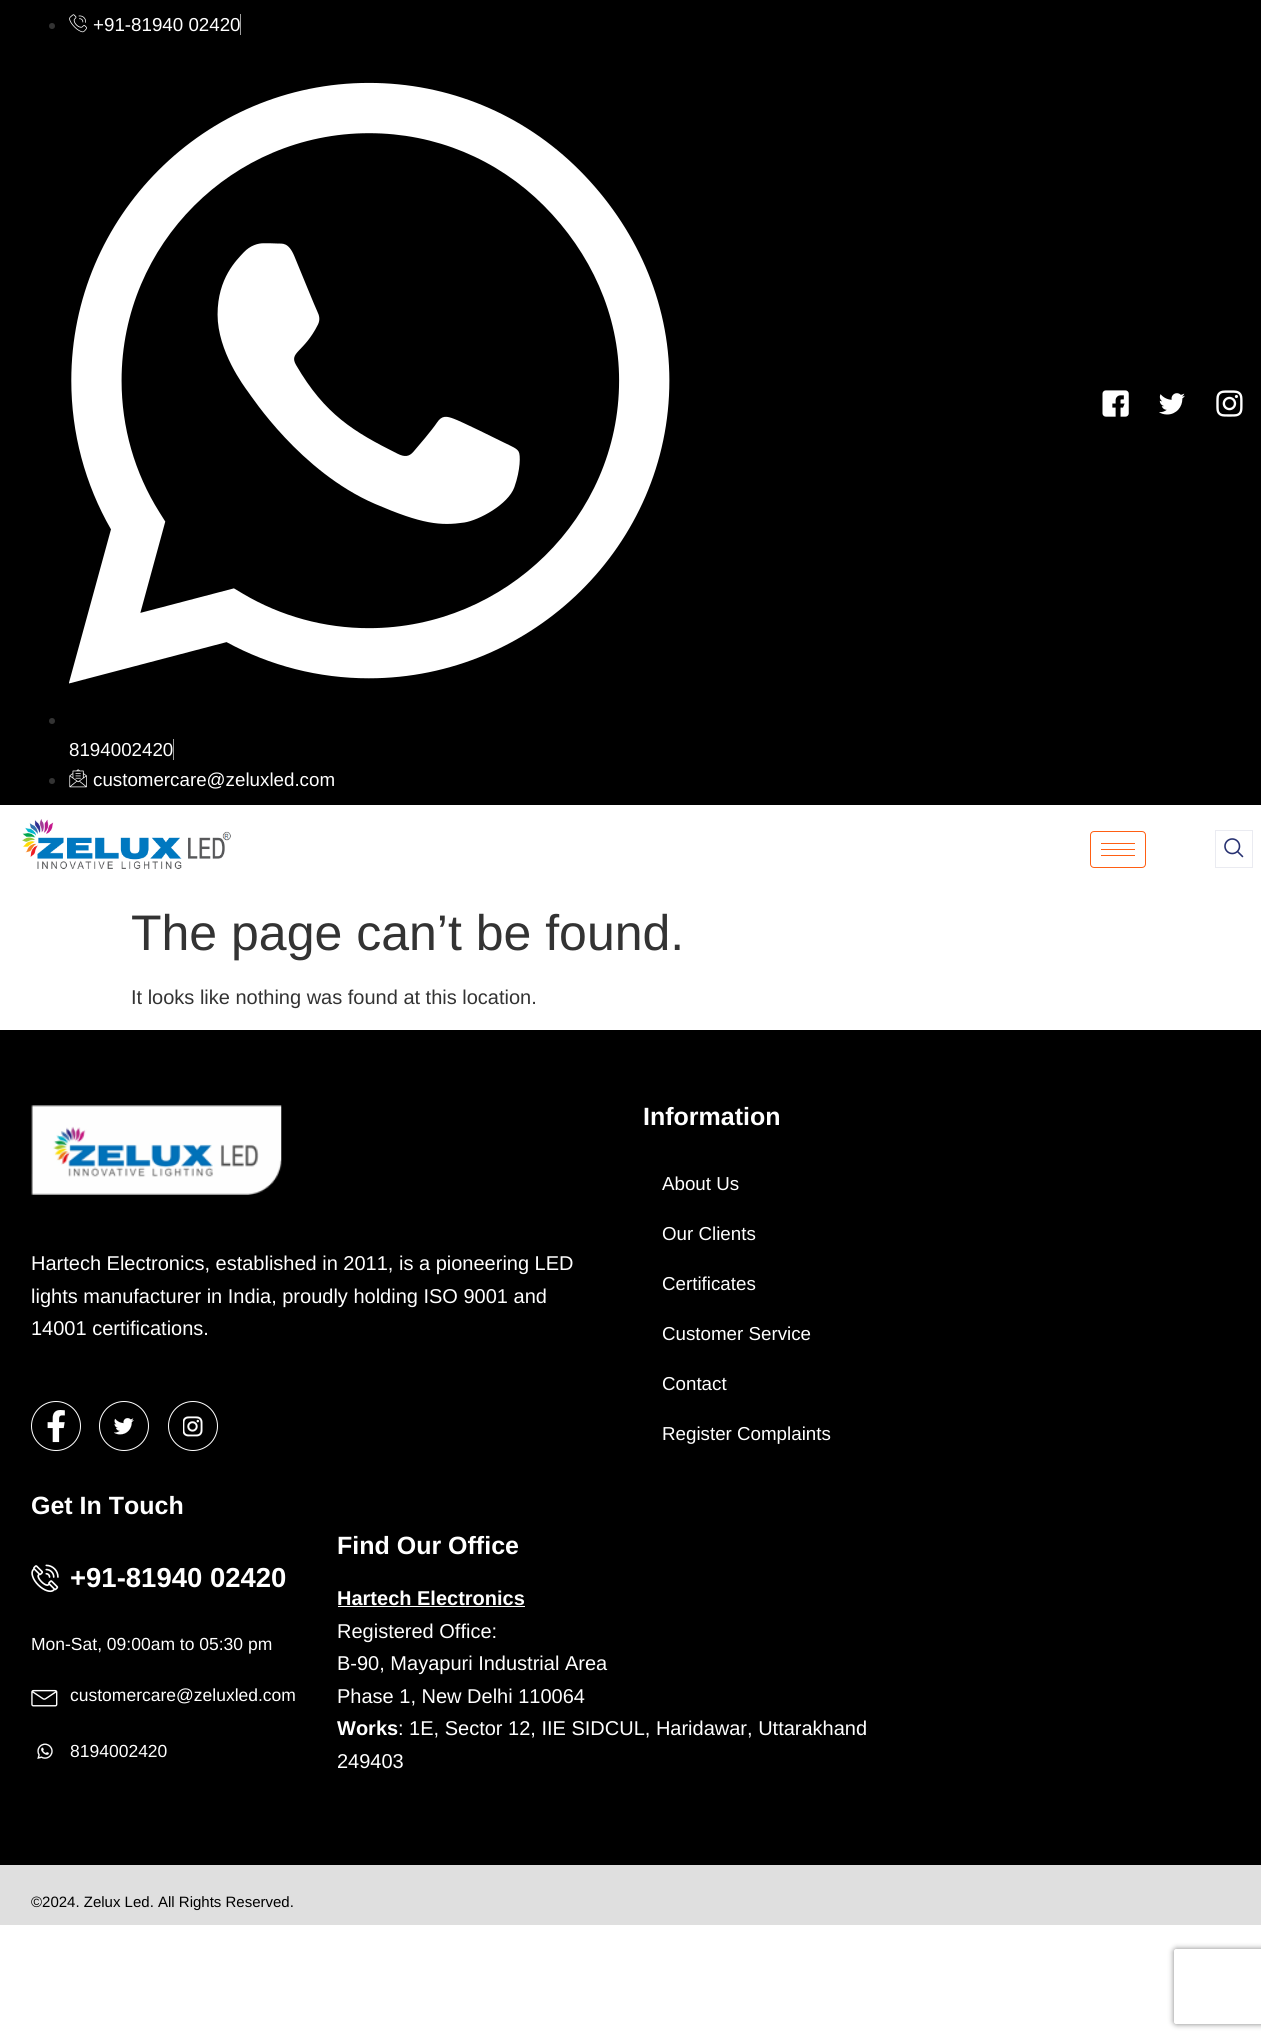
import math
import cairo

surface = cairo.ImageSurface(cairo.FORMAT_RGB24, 1261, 2041)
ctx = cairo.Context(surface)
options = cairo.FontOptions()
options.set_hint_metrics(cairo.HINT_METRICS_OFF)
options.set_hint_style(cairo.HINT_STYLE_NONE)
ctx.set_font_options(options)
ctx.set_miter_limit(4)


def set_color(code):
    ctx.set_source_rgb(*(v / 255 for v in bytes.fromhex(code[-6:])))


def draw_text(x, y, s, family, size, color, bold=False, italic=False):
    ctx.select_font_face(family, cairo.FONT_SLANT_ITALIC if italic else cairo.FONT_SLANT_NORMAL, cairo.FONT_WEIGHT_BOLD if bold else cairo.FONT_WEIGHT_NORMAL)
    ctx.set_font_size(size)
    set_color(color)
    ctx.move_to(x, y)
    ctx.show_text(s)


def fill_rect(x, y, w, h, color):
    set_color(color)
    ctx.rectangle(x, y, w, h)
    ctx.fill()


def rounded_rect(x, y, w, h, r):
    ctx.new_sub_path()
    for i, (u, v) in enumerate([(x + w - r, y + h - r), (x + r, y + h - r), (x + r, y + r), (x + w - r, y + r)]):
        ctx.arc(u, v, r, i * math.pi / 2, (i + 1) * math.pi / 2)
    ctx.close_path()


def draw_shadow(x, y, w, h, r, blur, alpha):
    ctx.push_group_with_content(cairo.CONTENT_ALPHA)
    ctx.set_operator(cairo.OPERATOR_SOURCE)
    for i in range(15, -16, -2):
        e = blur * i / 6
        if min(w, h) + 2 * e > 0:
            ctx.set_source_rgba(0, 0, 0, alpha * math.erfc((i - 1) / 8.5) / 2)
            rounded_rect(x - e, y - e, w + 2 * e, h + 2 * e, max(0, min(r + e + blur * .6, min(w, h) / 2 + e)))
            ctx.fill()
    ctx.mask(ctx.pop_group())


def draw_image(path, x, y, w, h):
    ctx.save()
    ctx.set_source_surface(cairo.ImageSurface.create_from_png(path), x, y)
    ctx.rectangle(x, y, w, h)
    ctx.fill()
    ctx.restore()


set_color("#ffffff")
ctx.paint()
fill_rect(0, 0, 1261, 805, "#000000")
set_color("#333333")
ctx.arc(52, 26, 3, 0, 2 * math.pi)
ctx.fill()
draw_image("assets/img1.png", 69, 14, 18, 19)
draw_text(93, 31, "+91-81940 02420", "Liberation Sans", 18.75, "#ffffff")
fill_rect(240, 14, 1, 21, "#9e9e9e")
draw_image("assets/img2.png", 69, 82, 601, 602)
set_color("#333333")
ctx.arc(52, 721, 3, 0, 2 * math.pi)
ctx.fill()
draw_text(69, 756, "8194002420", "Liberation Sans", 18.75, "#ffffff")
fill_rect(173, 739, 1, 21, "#9e9e9e")
set_color("#333333")
ctx.new_path()
ctx.arc(52, 781, 3, 0, 2 * math.pi)
ctx.fill()
draw_image("assets/img3.png", 69, 769, 18, 19)
draw_text(93, 786, "customercare@zeluxled.com", "Liberation Sans", 18.75, "#ffffff")
draw_image("assets/img4.png", 1102, 390, 27, 27)
draw_image("assets/img5.png", 1159, 393, 26, 22)
draw_image("assets/img6.png", 1216, 390, 27, 27)
draw_image("assets/img7.png", 22, 819, 209, 51)
rounded_rect(1090.5, 831.5, 55, 36, 3.5)
set_color("#ff5e13")
ctx.set_line_width(1)
ctx.stroke()
fill_rect(1101, 843, 34, 1, "#ff5e13")
fill_rect(1101, 849, 34, 1, "#ff5e13")
fill_rect(1101, 855, 34, 1, "#ff5e13")
ctx.rectangle(1215.5, 830.5, 37, 37)
set_color("#eaebf1")
ctx.stroke()
draw_image("assets/img8.png", 1224, 838, 20, 20)
draw_text(131, 950, "The page can’t be found.", "Liberation Sans", 50, "#333333")
draw_text(131, 1004, "It looks like nothing was found at this location.", "Liberation Sans", 20, "#333333")
fill_rect(0, 1030, 1261, 835, "#000000")
draw_image("assets/img9.png", 31, 1105, 251, 90)
draw_text(31, 1270, "Hartech Electronics, established in 2011, is a pioneering LED", "Liberation Sans", 20, "#ffffff")
draw_text(31, 1303, "lights manufacturer in India, proudly holding ISO 9001 and", "Liberation Sans", 20, "#ffffff")
draw_text(31, 1335, "14001 certifications.", "Liberation Sans", 20, "#ffffff")
ctx.new_path()
ctx.arc(56, 1426, 24.5, 0, 2 * math.pi)
ctx.stroke()
draw_image("assets/img10.png", 47, 1410, 18, 33)
ctx.arc(124, 1426, 24.5, 0, 2 * math.pi)
ctx.stroke()
draw_image("assets/img11.png", 114, 1418, 20, 17)
ctx.arc(193, 1426, 24.5, 0, 2 * math.pi)
ctx.stroke()
draw_image("assets/img12.png", 183, 1416, 20, 21)
draw_text(643, 1125, "Information", "Liberation Sans", 25, "#ffffff", bold=True)
draw_text(662, 1190, "About Us", "Liberation Sans", 18.75, "#ffffff")
draw_text(662, 1240, "Our Clients", "Liberation Sans", 18.75, "#ffffff")
draw_text(662, 1290, "Certificates", "Liberation Sans", 18.75, "#ffffff")
draw_text(662, 1340, "Customer Service", "Liberation Sans", 18.75, "#ffffff")
draw_text(662, 1390, "Contact", "Liberation Sans", 18.75, "#ffffff")
draw_text(662, 1440, "Register Complaints", "Liberation Sans", 18.75, "#ffffff")
draw_text(31, 1514, "Get In Touch", "Liberation Sans", 25, "#ffffff", bold=True)
draw_image("assets/img13.png", 31, 1564, 28, 29)
draw_text(70, 1587, "+91-81940 02420", "Liberation Sans", 27.5, "#ffffff", bold=True)
draw_text(31, 1650, "Mon-Sat, 09:00am to 05:30 pm", "Liberation Sans", 17.5, "#ffffff")
draw_image("assets/img14.png", 31, 1689, 27, 18)
draw_text(70, 1701, "customercare@zeluxled.com", "Liberation Sans", 17.5, "#ffffff")
draw_image("assets/img15.png", 37, 1743, 16, 16)
draw_text(70, 1757, "8194002420", "Liberation Sans", 17.5, "#ffffff")
draw_text(337, 1554, "Find Our Office", "Liberation Sans", 25, "#ffffff", bold=True)
draw_text(337, 1605, "Hartech Electronics", "Liberation Sans", 20, "#ffffff", bold=True)
fill_rect(338, 1606, 187, 1, "#ffffff")
draw_text(337, 1638, "Registered Office:", "Liberation Sans", 20, "#ffffff")
draw_text(337, 1670, "B-90, Mayapuri Industrial Area", "Liberation Sans", 20, "#ffffff")
draw_text(337, 1703, "Phase 1, New Delhi 110064", "Liberation Sans", 20, "#ffffff")
draw_text(337, 1735, "Works", "Liberation Sans", 20, "#ffffff", bold=True)
draw_text(398, 1735, ": 1E, Sector 12, IIE SIDCUL, Haridawar, Uttarakhand", "Liberation Sans", 20, "#ffffff")
draw_text(337, 1768, "249403", "Liberation Sans", 20, "#ffffff")
fill_rect(0, 1865, 1261, 60, "#dfdfdf")
draw_text(31, 1907, "©2024. Zelux Led. All Rights Reserved.", "Liberation Sans", 15, "#000000")
ctx.save()
ctx.set_fill_rule(cairo.FILL_RULE_EVEN_ODD)
ctx.new_path()
ctx.move_to(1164, 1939)
ctx.line_to(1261, 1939)
ctx.line_to(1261, 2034)
ctx.line_to(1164, 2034)
ctx.close_path()
ctx.move_to(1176.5, 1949)
ctx.line_to(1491.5, 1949)
ctx.curve_to(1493, 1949, 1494, 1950, 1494, 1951.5)
ctx.line_to(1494, 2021.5)
ctx.curve_to(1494, 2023, 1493, 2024, 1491.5, 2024)
ctx.line_to(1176.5, 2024)
ctx.curve_to(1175, 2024, 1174, 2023, 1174, 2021.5)
ctx.line_to(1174, 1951.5)
ctx.curve_to(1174, 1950, 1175, 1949, 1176.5, 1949)
ctx.close_path()
ctx.clip()
set_color("#808080")
draw_shadow(1174, 1949, 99, 75, 2.5, 3, 1)
ctx.restore()
surface.write_to_png("output.png")
